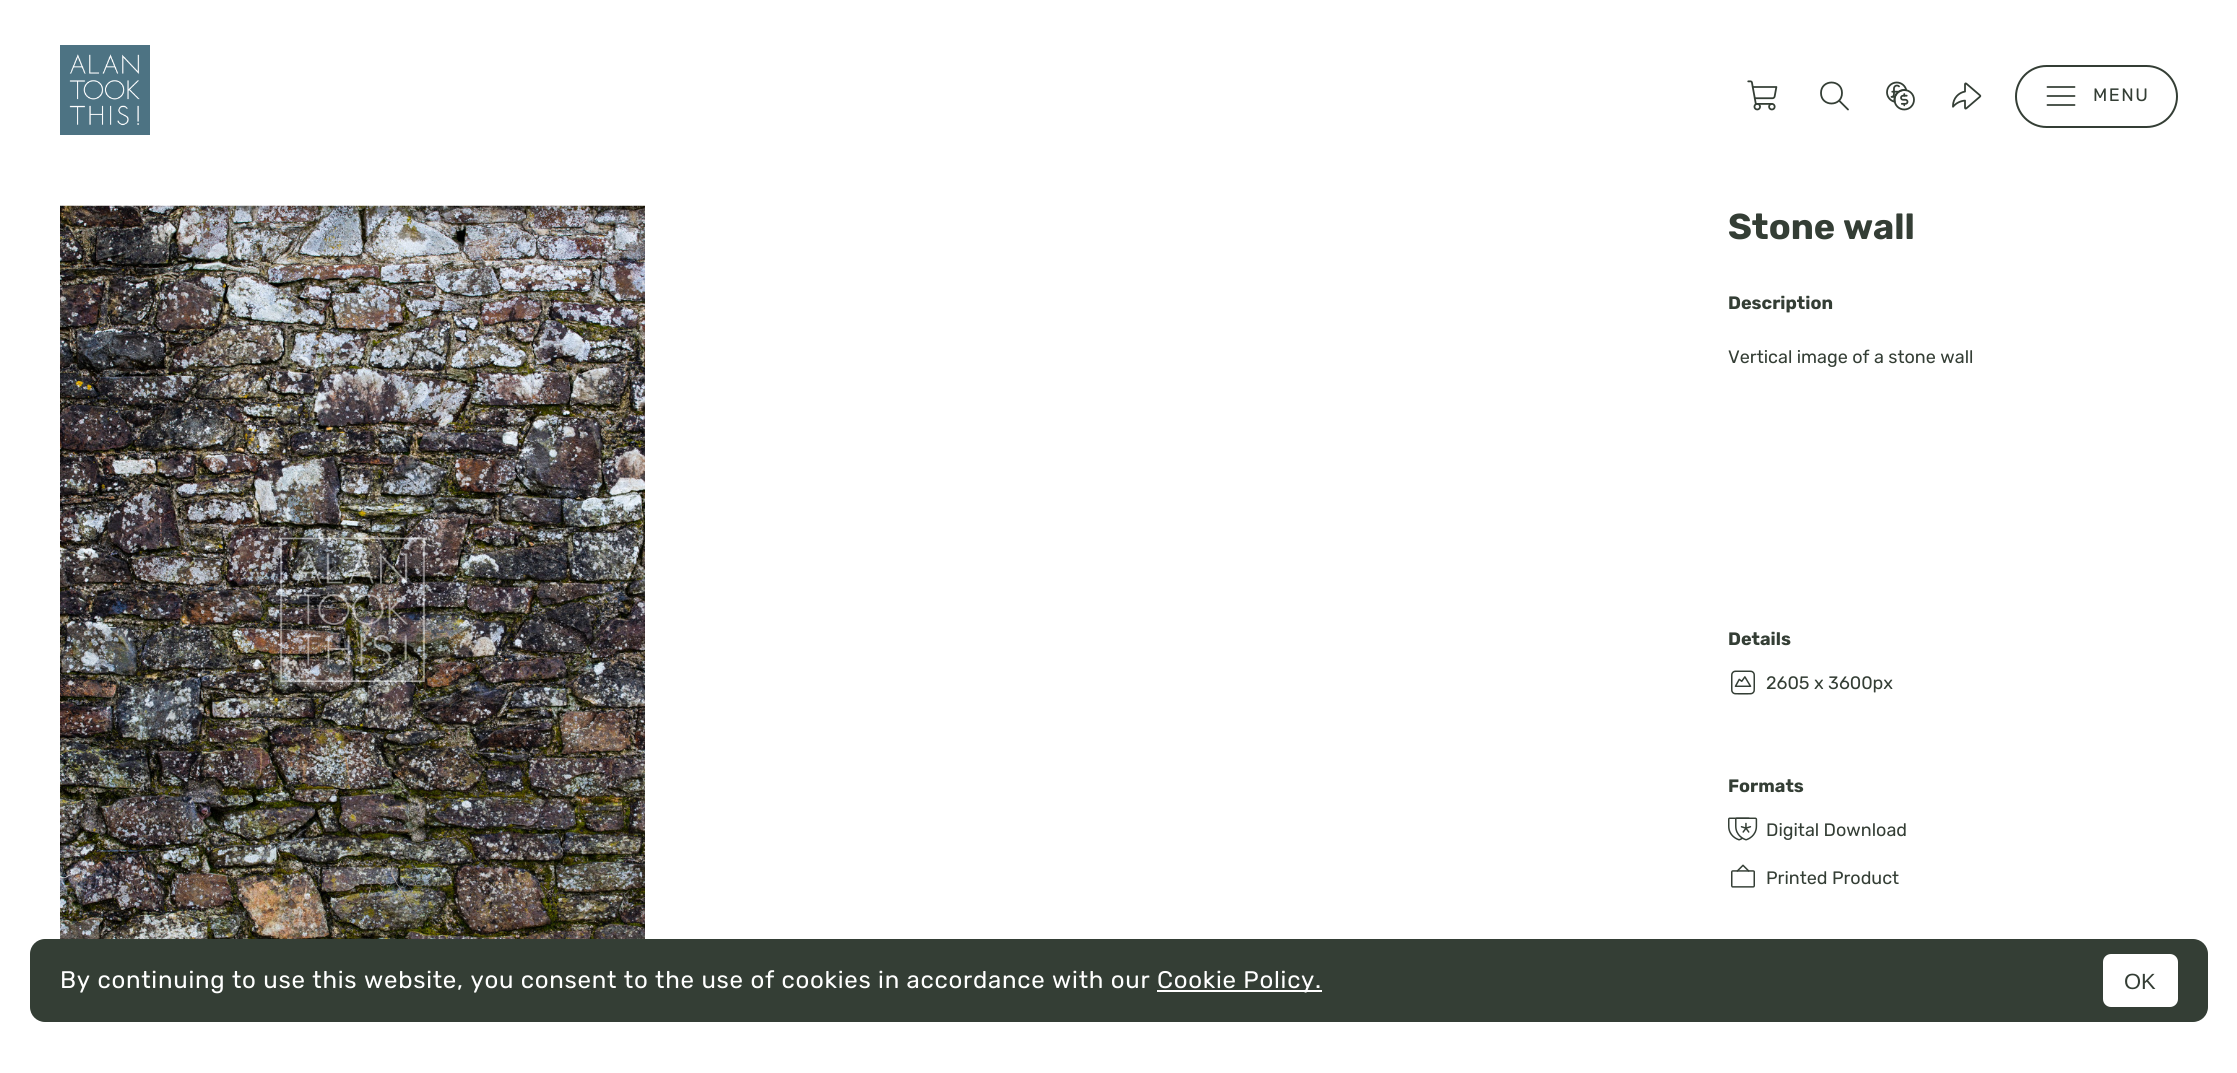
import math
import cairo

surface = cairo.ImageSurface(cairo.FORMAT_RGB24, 2237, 1073)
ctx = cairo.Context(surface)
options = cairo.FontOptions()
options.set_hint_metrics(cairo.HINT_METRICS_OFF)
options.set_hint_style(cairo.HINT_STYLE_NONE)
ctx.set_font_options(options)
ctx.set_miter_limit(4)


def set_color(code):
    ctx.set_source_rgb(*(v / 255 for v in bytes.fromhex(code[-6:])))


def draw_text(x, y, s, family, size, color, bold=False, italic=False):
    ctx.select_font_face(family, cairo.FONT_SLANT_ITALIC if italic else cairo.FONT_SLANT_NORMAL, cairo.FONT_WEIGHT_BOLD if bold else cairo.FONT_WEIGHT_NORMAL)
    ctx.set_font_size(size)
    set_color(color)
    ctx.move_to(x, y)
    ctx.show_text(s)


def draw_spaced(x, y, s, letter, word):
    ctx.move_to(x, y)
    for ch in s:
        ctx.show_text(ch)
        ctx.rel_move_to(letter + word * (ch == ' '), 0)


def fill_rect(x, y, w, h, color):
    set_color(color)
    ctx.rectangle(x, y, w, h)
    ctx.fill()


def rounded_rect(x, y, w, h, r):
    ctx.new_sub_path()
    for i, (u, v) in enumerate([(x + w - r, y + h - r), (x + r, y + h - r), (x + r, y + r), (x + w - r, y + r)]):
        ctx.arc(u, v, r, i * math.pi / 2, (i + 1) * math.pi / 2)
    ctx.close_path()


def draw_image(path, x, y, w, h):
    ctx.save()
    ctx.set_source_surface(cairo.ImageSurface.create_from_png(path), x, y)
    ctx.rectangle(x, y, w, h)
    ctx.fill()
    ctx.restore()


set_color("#ffffff")
ctx.paint()
draw_image("assets/img1.png", 60, 45, 90, 90)
draw_image("assets/img2.png", 1747, 80, 31, 31)
ctx.new_path()
ctx.move_to(1848, 109.5)
ctx.line_to(1839, 100.5)
ctx.move_to(1842, 93)
ctx.curve_to(1842, 107, 1821, 107, 1821, 93)
ctx.curve_to(1821, 79, 1842, 79, 1842, 93)
ctx.close_path()
set_color("#343e35")
ctx.set_line_width(1.8)
ctx.set_line_cap(cairo.LINE_CAP_ROUND)
ctx.set_line_join(cairo.LINE_JOIN_ROUND)
ctx.stroke()
draw_image("assets/img3.png", 1886, 81, 29, 30)
draw_image("assets/img4.png", 1952, 82, 30, 28)
rounded_rect(2016, 66, 161, 61, 30.5)
ctx.set_line_width(2)
ctx.set_line_cap(cairo.LINE_CAP_BUTT)
ctx.set_line_join(cairo.LINE_JOIN_MITER)
ctx.stroke()
ctx.new_path()
ctx.move_to(2047.5, 96)
ctx.line_to(2074.5, 96)
ctx.move_to(2047.5, 87)
ctx.line_to(2074.5, 87)
ctx.move_to(2047.5, 105)
ctx.line_to(2074.5, 105)
ctx.set_line_width(1.8)
ctx.set_line_cap(cairo.LINE_CAP_ROUND)
ctx.set_line_join(cairo.LINE_JOIN_ROUND)
ctx.stroke()
ctx.select_font_face("Rubik")
ctx.set_font_size(18)
draw_spaced(2093, 101, "MENU", 1.5, 0)
draw_image("assets/img5.png", 60, 205, 585, 734)
draw_text(1728, 239, "Stone wall", "Rubik", 36, "#343e35", bold=True)
draw_text(1728, 309, "Description", "Rubik", 18, "#343e35", bold=True)
draw_text(1728, 363, "Vertical image of a stone wall", "Rubik", 18, "#343e35")
draw_text(1728, 645, "Details", "Rubik", 18, "#343e35", bold=True)
draw_image("assets/img6.png", 1731, 670, 24, 25)
draw_text(1766, 689, "2605 x 3600px", "Rubik", 18, "#343e35")
draw_text(1728, 792, "Formats", "Rubik", 18, "#343e35", bold=True)
draw_image("assets/img7.png", 1728, 817, 30, 24)
draw_text(1766, 836, "Digital Download", "Rubik", 18, "#343e35")
draw_image("assets/img8.png", 1731, 864, 24, 24)
draw_text(1766, 884, "Printed Product", "Rubik", 18, "#343e35")
rounded_rect(30, 939, 2178, 83, 15)
ctx.fill()
ctx.set_font_size(24)
set_color("#ffffff")
draw_spaced(60, 988, "By continuing to use this website, you consent to the use of cookies in accordance with our", 0.75, 0)
fill_rect(1157, 990, 165, 2, "#ffffff")
draw_spaced(1157, 988, "Cookie Policy.", 0.75, 0)
rounded_rect(2103, 954, 75, 53, 8)
ctx.fill()
draw_text(2124, 989, "OK", "Liberation Sans", 22, "#343e35")
surface.write_to_png("output.png")
